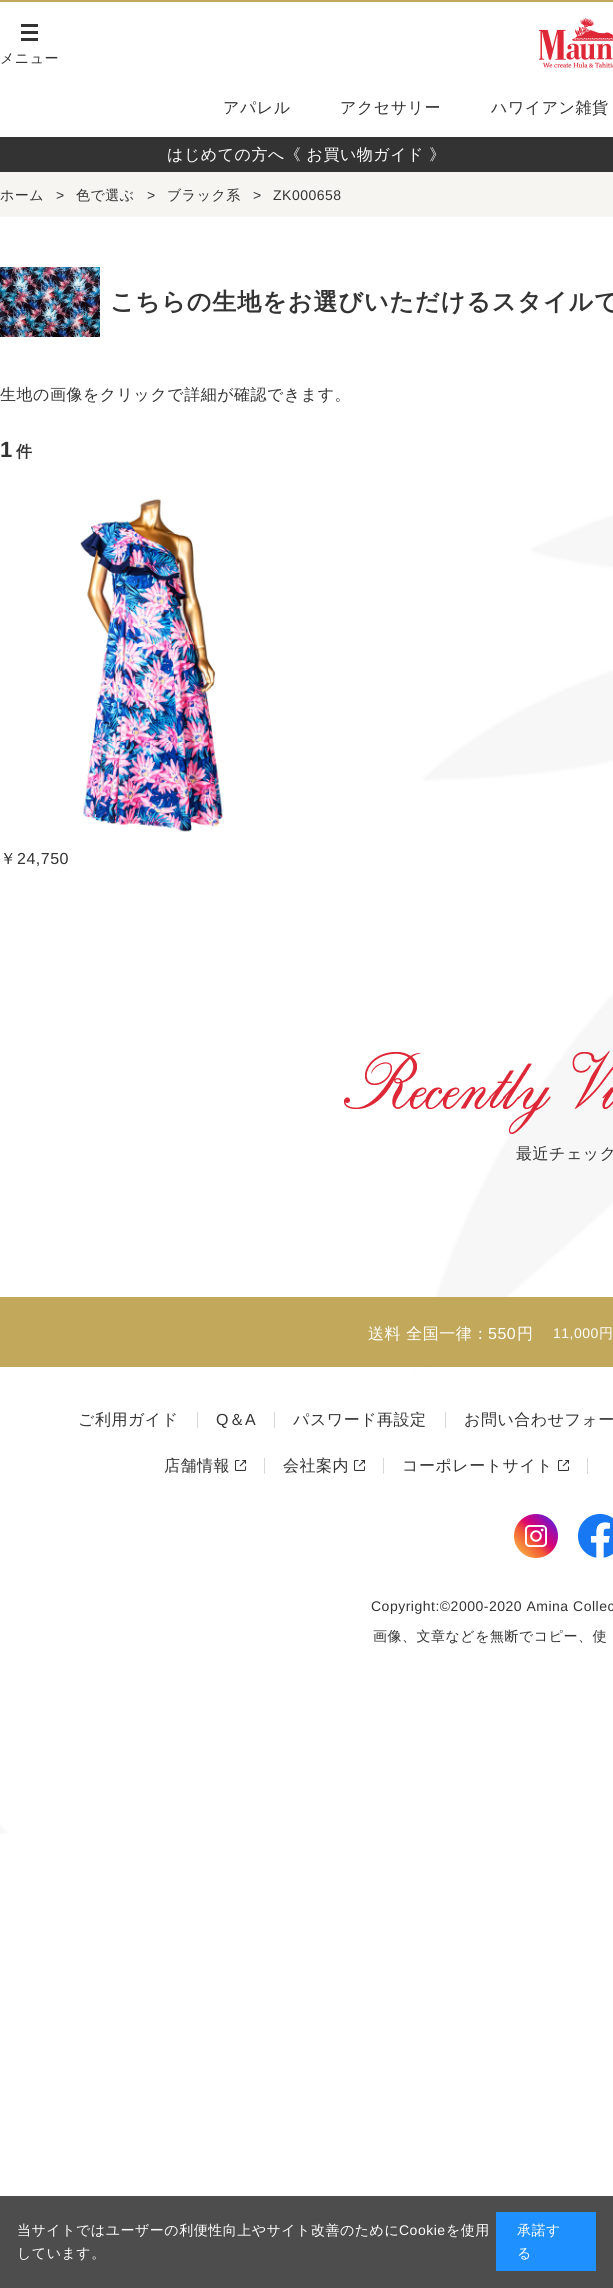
import math
import cairo

surface = cairo.ImageSurface(cairo.FORMAT_RGB24, 613, 2288)
ctx = cairo.Context(surface)
options = cairo.FontOptions()
options.set_hint_metrics(cairo.HINT_METRICS_OFF)
options.set_hint_style(cairo.HINT_STYLE_NONE)
ctx.set_font_options(options)
ctx.set_miter_limit(4)


def set_color(code):
    ctx.set_source_rgb(*(v / 255 for v in bytes.fromhex(code[-6:])))


def draw_spaced(x, y, s, letter, word):
    ctx.move_to(x, y)
    for ch in s:
        ctx.show_text(ch)
        ctx.rel_move_to(letter + word * (ch == ' '), 0)


def fill_rect(x, y, w, h, color):
    set_color(color)
    ctx.rectangle(x, y, w, h)
    ctx.fill()


def draw_image(path, x, y, w, h):
    ctx.save()
    ctx.set_source_surface(cairo.ImageSurface.create_from_png(path), x, y)
    ctx.rectangle(x, y, w, h)
    ctx.fill()
    ctx.restore()


set_color("#ffffff")
ctx.paint()
draw_image("assets/img1.png", 0, 515, 613, 1319)
fill_rect(0, 0, 613, 2, "#c2a85a")
fill_rect(21, 31, 17, 3, "#333333")
fill_rect(21, 24, 17, 3, "#333333")
fill_rect(21, 38, 17, 3, "#333333")
ctx.select_font_face("WenQuanYi Zen Hei Medium")
ctx.set_font_size(14)
draw_spaced(0, 63, "メニュー", 0.5, 0)
draw_image("assets/img2.png", 538, 18, 75, 50)
ctx.set_font_size(16)
draw_spaced(223, 113, "アパレル", 0.5, 0)
draw_spaced(340, 113, "アクセサリー", 0.5, 0)
draw_spaced(491, 113, "ハワイアン雑貨", 0.5, 0)
fill_rect(0, 137, 613, 35, "#333333")
set_color("#ffffff")
draw_spaced(167, 160, "はじめての方へ《 お買い物ガイド 》", 0.5, 0)
fill_rect(0, 172, 613, 45, "#f6f5f2")
ctx.set_font_size(14)
set_color("#333333")
draw_spaced(0, 200, "ホーム", 0.5, 0)
ctx.select_font_face("Liberation Sans")
draw_spaced(56, 200, ">", 0.5, 0)
ctx.select_font_face("WenQuanYi Zen Hei Medium")
draw_spaced(76, 200, "色で選ぶ", 0.5, 0)
ctx.select_font_face("Liberation Sans")
draw_spaced(147, 200, ">", 0.5, 0)
ctx.select_font_face("WenQuanYi Zen Hei Medium")
draw_spaced(167, 200, "ブラック系", 0.5, 0)
ctx.select_font_face("Liberation Sans")
draw_spaced(253, 200, ">", 0.5, 0)
draw_spaced(273, 200, "ZK000658", 0.5, 0)
draw_image("assets/img3.png", 0, 267, 100, 70)
ctx.select_font_face("WenQuanYi Zen Hei", cairo.FONT_SLANT_NORMAL, cairo.FONT_WEIGHT_BOLD)
ctx.set_font_size(24)
draw_spaced(110, 310, "こちらの生地をお選びいただけるスタイルで", 1, 0)
ctx.select_font_face("WenQuanYi Zen Hei Medium")
ctx.set_font_size(16)
draw_spaced(0, 400, "生地の画像をクリックで詳細が確認できます。", 0.5, 0)
ctx.select_font_face("Liberation Sans", cairo.FONT_SLANT_NORMAL, cairo.FONT_WEIGHT_BOLD)
ctx.set_font_size(22)
draw_spaced(0, 457, "1", 0.5, 0)
ctx.select_font_face("WenQuanYi Zen Hei", cairo.FONT_SLANT_NORMAL, cairo.FONT_WEIGHT_BOLD)
ctx.set_font_size(16)
draw_spaced(16, 457, "件", 0.5, 0)
draw_image("assets/img4.png", 0, 494, 285, 342)
ctx.select_font_face("WenQuanYi Zen Hei Medium")
draw_spaced(0, 864, "￥", 0.5, 0)
ctx.select_font_face("Liberation Sans")
draw_spaced(17, 864, "24,750", 0.5, 0)
draw_image("assets/img5.png", 344, 1051, 269, 83)
ctx.select_font_face("WenQuanYi Zen Hei Medium")
draw_spaced(516, 1159, "最近チェック", 0.5, 0)
fill_rect(0, 1297, 613, 70, "#c2a85a")
set_color("#ffffff")
draw_spaced(368, 1339, "送料 全国一律：", 0.5, 0)
ctx.select_font_face("Liberation Sans")
draw_spaced(488, 1339, "550", 0.5, 0)
ctx.select_font_face("WenQuanYi Zen Hei Medium")
draw_spaced(517, 1339, "円", 0.5, 0)
ctx.select_font_face("Liberation Sans")
ctx.set_font_size(14)
draw_spaced(553, 1338, "11,000", 0.5, 0)
ctx.select_font_face("WenQuanYi Zen Hei Medium")
draw_spaced(599, 1338, "円", 0.5, 0)
fill_rect(415, 1367, 10, 8, "#ffffff")
fill_rect(197, 1412, 1, 16, "#d8d8d8")
ctx.set_font_size(16)
set_color("#333333")
draw_spaced(78, 1425, "ご利用ガイド", 0.5, 0)
fill_rect(274, 1412, 1, 16, "#d8d8d8")
ctx.select_font_face("Liberation Sans")
set_color("#333333")
draw_spaced(216, 1425, "Q", 0.5, 0)
ctx.select_font_face("WenQuanYi Zen Hei Medium")
draw_spaced(229, 1425, "＆", 0.5, 0)
ctx.select_font_face("Liberation Sans")
draw_spaced(245, 1425, "A", 0.5, 0)
fill_rect(445, 1412, 1, 16, "#d8d8d8")
ctx.select_font_face("WenQuanYi Zen Hei Medium")
set_color("#333333")
draw_spaced(293, 1425, "パスワード再設定", 0.5, 0)
draw_spaced(464, 1425, "お問い合わせフォー", 0.5, 0)
fill_rect(264, 1458, 1, 16, "#d8d8d8")
set_color("#333333")
draw_spaced(164, 1471, "店舗情報", 0.5, 0)
draw_image("assets/img6.png", 235, 1460, 11, 11)
fill_rect(383, 1458, 1, 16, "#d8d8d8")
set_color("#333333")
draw_spaced(283, 1471, "会社案内", 0.5, 0)
draw_image("assets/img6.png", 354, 1460, 11, 11)
fill_rect(587, 1458, 1, 16, "#d8d8d8")
set_color("#333333")
draw_spaced(402, 1471, "コーポレートサイト", 0.5, 0)
draw_image("assets/img6.png", 558, 1460, 11, 11)
draw_image("assets/img7.png", 514, 1514, 44, 44)
draw_image("assets/img8.png", 578, 1514, 35, 44)
ctx.select_font_face("Liberation Sans")
ctx.set_font_size(14)
draw_spaced(371, 1611, "Copyright:©2000-2020 Amina Collec", 0.5, 0)
ctx.select_font_face("WenQuanYi Zen Hei Medium")
draw_spaced(373, 1641, "画像、文章などを無断でコピー、使", 0.5, 0)
fill_rect(0, 2196, 613, 92, "#4d4d4d")
set_color("#ffffff")
draw_spaced(17, 2235, "当サイトではユーザーの利便性向上やサイト改善のために", 0.5, 0)
ctx.select_font_face("Liberation Sans")
draw_spaced(399, 2235, "Cookie", 0.5, 0)
ctx.select_font_face("WenQuanYi Zen Hei Medium")
draw_spaced(446, 2235, "を使用", 0.5, 0)
draw_spaced(17, 2258, "しています。", 0.5, 0)
fill_rect(496, 2212, 100, 59, "#1e90ff")
set_color("#ffffff")
draw_spaced(517, 2235, "承諾す", 0.5, 0)
draw_spaced(517, 2258, "る", 0.5, 0)
surface.write_to_png("output.png")
